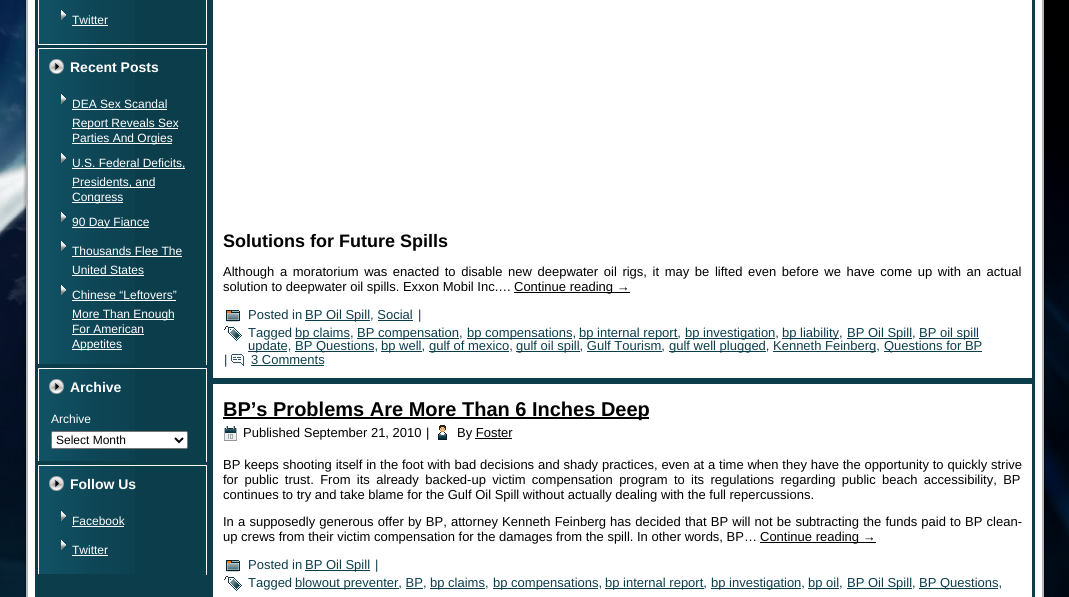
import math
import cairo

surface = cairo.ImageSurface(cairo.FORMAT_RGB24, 1069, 597)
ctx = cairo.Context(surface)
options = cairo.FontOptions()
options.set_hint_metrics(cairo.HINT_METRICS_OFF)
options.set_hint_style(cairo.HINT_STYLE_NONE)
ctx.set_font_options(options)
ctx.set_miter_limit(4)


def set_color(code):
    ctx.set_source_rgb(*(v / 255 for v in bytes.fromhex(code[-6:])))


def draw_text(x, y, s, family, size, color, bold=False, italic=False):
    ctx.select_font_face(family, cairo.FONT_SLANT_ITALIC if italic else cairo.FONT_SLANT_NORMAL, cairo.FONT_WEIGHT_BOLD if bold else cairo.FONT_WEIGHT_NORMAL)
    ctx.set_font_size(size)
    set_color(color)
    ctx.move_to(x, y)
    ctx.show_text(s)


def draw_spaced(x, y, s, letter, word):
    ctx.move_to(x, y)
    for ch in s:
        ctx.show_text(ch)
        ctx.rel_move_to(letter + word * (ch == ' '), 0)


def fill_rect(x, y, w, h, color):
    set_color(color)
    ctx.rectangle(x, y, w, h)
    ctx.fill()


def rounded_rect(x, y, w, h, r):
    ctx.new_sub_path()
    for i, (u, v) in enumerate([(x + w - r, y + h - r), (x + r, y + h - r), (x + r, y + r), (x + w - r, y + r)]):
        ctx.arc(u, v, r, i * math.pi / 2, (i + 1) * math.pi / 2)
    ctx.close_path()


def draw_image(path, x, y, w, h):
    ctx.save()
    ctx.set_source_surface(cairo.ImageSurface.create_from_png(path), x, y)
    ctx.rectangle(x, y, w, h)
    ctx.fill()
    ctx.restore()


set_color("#ffffff")
ctx.paint()
draw_image("assets/img1.png", 0, 0, 1069, 597)
draw_image("assets/img2.png", 0, 23, 26, 282)
draw_image("assets/img3.png", 23, 0, 1009, 597)
draw_image("assets/img4.png", 1035, 0, 11, 597)
fill_rect(35, 0, 175, 597, "#0c3d4b")
draw_image("assets/img5.png", 38, 0, 97, 44)
fill_rect(206, 0, 1, 44, "#ffffff")
draw_image("assets/img6.png", 61, 10, 5, 10)
draw_text(72, 24, "Twitter", "Liberation Sans", 12, "#ffffff")
fill_rect(72, 25, 36, 1, "#ffffff")
draw_image("assets/img7.png", 38, 44, 168, 1)
fill_rect(206, 44, 1, 1, "#eef1f2")
draw_image("assets/img8.png", 38, 48, 168, 1)
draw_image("assets/img9.png", 206, 364, 1, 1)
fill_rect(206, 48, 1, 1, "#edf1f2")
draw_image("assets/img10.png", 38, 49, 97, 315)
fill_rect(206, 49, 1, 315, "#ffffff")
draw_image("assets/img11.png", 49, 59, 15, 15)
draw_text(70, 72, "Recent Posts", "Liberation Sans", 14, "#ffffff", bold=True)
draw_image("assets/img6.png", 61, 94, 5, 10)
draw_text(72, 108, "DEA Sex Scandal", "Liberation Sans", 12, "#ffffff")
fill_rect(72, 109, 95, 1, "#ffffff")
fill_rect(72, 128, 106, 1, "#ffffff")
draw_text(72, 127, "Report Reveals Sex", "Liberation Sans", 12, "#ffffff")
fill_rect(72, 143, 100, 1, "#ffffff")
draw_text(72, 142, "Parties And Orgies", "Liberation Sans", 12, "#ffffff")
draw_image("assets/img6.png", 61, 153, 5, 10)
fill_rect(72, 168, 113, 1, "#ffffff")
draw_text(72, 167, "U.S. Federal Deficits,", "Liberation Sans", 12, "#ffffff")
fill_rect(72, 187, 83, 1, "#ffffff")
draw_text(72, 186, "Presidents, and", "Liberation Sans", 12, "#ffffff")
fill_rect(72, 202, 51, 1, "#ffffff")
draw_text(72, 201, "Congress", "Liberation Sans", 12, "#ffffff")
draw_image("assets/img6.png", 61, 212, 5, 10)
fill_rect(72, 227, 77, 1, "#ffffff")
draw_text(72, 226, "90 Day Fiance", "Liberation Sans", 12, "#ffffff")
draw_image("assets/img6.png", 61, 241, 5, 10)
draw_text(72, 255, "Thousands Flee The", "Liberation Sans", 12, "#ffffff")
fill_rect(72, 256, 110, 1, "#ffffff")
draw_text(72, 274, "United States", "Liberation Sans", 12, "#ffffff")
fill_rect(72, 275, 72, 1, "#ffffff")
draw_image("assets/img6.png", 61, 285, 5, 10)
draw_text(72, 299, "Chinese “Leftovers”", "Liberation Sans", 12, "#ffffff")
fill_rect(72, 300, 104, 1, "#ffffff")
fill_rect(72, 319, 102, 1, "#ffffff")
draw_text(72, 318, "More Than Enough", "Liberation Sans", 12, "#ffffff")
draw_text(72, 333, "For American", "Liberation Sans", 12, "#ffffff")
fill_rect(72, 334, 72, 1, "#ffffff")
fill_rect(72, 349, 50, 1, "#ffffff")
draw_text(72, 348, "Appetites", "Liberation Sans", 12, "#ffffff")
draw_image("assets/img8.png", 38, 368, 168, 1)
draw_image("assets/img9.png", 206, 461, 1, 1)
fill_rect(206, 368, 1, 1, "#edf1f2")
draw_image("assets/img12.png", 38, 369, 97, 92)
fill_rect(206, 369, 1, 92, "#ffffff")
draw_image("assets/img11.png", 49, 379, 15, 15)
draw_text(70, 392, "Archive", "Liberation Sans", 14, "#ffffff", bold=True)
draw_text(51, 423, "Archive", "Liberation Sans", 12, "#ffffff")
rounded_rect(51.5, 431.5, 136, 17, 1.5)
ctx.fill_preserve()
set_color("#767676")
ctx.set_line_width(1)
ctx.stroke()
ctx.new_path()
ctx.move_to(175, 438)
ctx.line_to(179, 442)
ctx.line_to(183, 438)
set_color("#000000")
ctx.set_line_width(2)
ctx.stroke()
draw_text(56, 444, "Select Month", "Liberation Sans", 12, "#000000")
draw_image("assets/img8.png", 38, 465, 168, 1)
draw_image("assets/img9.png", 206, 574, 1, 1)
fill_rect(206, 465, 1, 1, "#edf1f2")
draw_image("assets/img13.png", 38, 466, 97, 108)
fill_rect(206, 466, 1, 108, "#ffffff")
draw_image("assets/img11.png", 49, 476, 15, 15)
draw_text(70, 489, "Follow Us", "Liberation Sans", 14, "#ffffff", bold=True)
draw_image("assets/img6.png", 61, 511, 5, 10)
draw_text(72, 525, "Facebook", "Liberation Sans", 12, "#ffffff")
fill_rect(72, 526, 52, 1, "#ffffff")
draw_image("assets/img6.png", 61, 540, 5, 10)
draw_text(72, 554, "Twitter", "Liberation Sans", 12, "#ffffff")
fill_rect(72, 555, 36, 1, "#ffffff")
fill_rect(210, 0, 3, 378, "#0c3d4b")
draw_text(223, 247, "Solutions for Future Spills", "Liberation Sans", 18, "#000000", bold=True)
ctx.select_font_face("Liberation Sans")
ctx.set_font_size(13)
draw_spaced(223, 276, "Although a moratorium was enacted to disable new deepwater oil rigs, it may be lifted even before we have come up with an actual", 0, 2)
draw_text(223, 291, "solution to deepwater oil spills. Exxon Mobil Inc.…", "Liberation Sans", 13, "#000000")
fill_rect(514, 292, 116, 1, "#000000")
draw_text(514, 291, "Continue reading →", "Liberation Sans", 13, "#000000")
draw_image("assets/img14.png", 226, 310, 14, 12)
draw_text(248, 319, "Posted in", "Liberation Sans", 13, "#0c3d4b")
fill_rect(305, 320, 65, 1, "#0c3d4b")
draw_text(305, 319, "BP Oil Spill, Social", "Liberation Sans", 13, "#0c3d4b")
fill_rect(378, 320, 35, 1, "#0c3d4b")
draw_text(418, 319, "|", "Liberation Sans", 13, "#0c3d4b")
draw_image("assets/img15.png", 224, 326, 18, 15)
draw_text(248, 337, "Tagged", "Liberation Sans", 13, "#0c3d4b")
fill_rect(295, 338, 55, 1, "#0c3d4b")
draw_text(295, 337, "bp claims,", "Liberation Sans", 13, "#0c3d4b")
fill_rect(357, 338, 102, 1, "#0c3d4b")
draw_text(357, 337, "BP compensation,", "Liberation Sans", 13, "#0c3d4b")
fill_rect(467, 338, 105, 1, "#0c3d4b")
draw_text(467, 337, "bp compensations,", "Liberation Sans", 13, "#0c3d4b")
fill_rect(579, 338, 99, 1, "#0c3d4b")
draw_text(579, 337, "bp internal report,", "Liberation Sans", 13, "#0c3d4b")
fill_rect(685, 338, 90, 1, "#0c3d4b")
draw_text(685, 337, "bp investigation,", "Liberation Sans", 13, "#0c3d4b")
fill_rect(782, 338, 57, 1, "#0c3d4b")
draw_text(782, 337, "bp liability,", "Liberation Sans", 13, "#0c3d4b")
fill_rect(847, 338, 65, 1, "#0c3d4b")
draw_text(847, 337, "BP Oil Spill,", "Liberation Sans", 13, "#0c3d4b")
fill_rect(919, 338, 60, 1, "#0c3d4b")
draw_text(919, 337, "BP oil spill", "Liberation Sans", 13, "#0c3d4b")
fill_rect(248, 351, 39, 1, "#0c3d4b")
draw_text(248, 350, "update,", "Liberation Sans", 13, "#0c3d4b")
fill_rect(295, 351, 79, 1, "#0c3d4b")
draw_text(295, 350, "BP Questions,", "Liberation Sans", 13, "#0c3d4b")
fill_rect(381, 351, 41, 1, "#0c3d4b")
draw_text(381, 350, "bp well,", "Liberation Sans", 13, "#0c3d4b")
fill_rect(429, 351, 80, 1, "#0c3d4b")
draw_text(429, 350, "gulf of mexico,", "Liberation Sans", 13, "#0c3d4b")
fill_rect(516, 351, 64, 1, "#0c3d4b")
draw_text(516, 350, "gulf oil spill, Gulf Tourism,", "Liberation Sans", 13, "#0c3d4b")
fill_rect(669, 351, 97, 1, "#0c3d4b")
draw_text(669, 350, "gulf well plugged,", "Liberation Sans", 13, "#0c3d4b")
fill_rect(773, 351, 103, 1, "#0c3d4b")
draw_text(773, 350, "Kenneth Feinberg,", "Liberation Sans", 13, "#0c3d4b")
fill_rect(884, 351, 98, 1, "#0c3d4b")
draw_text(884, 350, "Questions for BP", "Liberation Sans", 13, "#0c3d4b")
fill_rect(587, 351, 75, 1, "#0c3d4b")
draw_text(224, 364, "|", "Liberation Sans", 13, "#0c3d4b")
draw_image("assets/img16.png", 231, 354, 13, 12)
draw_text(251, 364, "3 Comments", "Liberation Sans", 13, "#0c3d4b")
fill_rect(251, 365, 73, 1, "#0c3d4b")
fill_rect(1032, 0, 3, 381, "#0c3d4b")
fill_rect(210, 378, 822, 6, "#0c3d4b")
fill_rect(210, 384, 3, 213, "#0c3d4b")
fill_rect(223, 417, 426, 2, "#000000")
draw_text(223, 416, "BP’s Problems Are More Than 6 Inches Deep", "Liberation Sans", 20, "#000000", bold=True)
draw_image("assets/img17.png", 224, 426, 13, 15)
draw_text(243, 437, "Published September 21, 2010", "Liberation Sans", 13, "#000000")
draw_text(426, 437, "|", "Liberation Sans", 13, "#000000")
draw_image("assets/img18.png", 438, 425, 9, 15)
draw_text(457, 437, "By Foster", "Liberation Sans", 13, "#000000")
fill_rect(475, 438, 37, 1, "#000000")
draw_spaced(223, 469, "BP keeps shooting itself in the foot with bad decisions and shady practices, even at a time when they have the opportunity to quickly strive", 0, 0.2)
draw_spaced(223, 484, "for public trust. From its already backed-up victim compensation program to its regulations regarding public beach accessibility, BP", 0, 2.75)
draw_text(223, 499, "continues to try and take blame for the Gulf Oil Spill without actually dealing with the full repercussions.", "Liberation Sans", 13, "#000000")
draw_spaced(223, 526, "In a supposedly generous offer by BP, attorney Kenneth Feinberg has decided that BP will not be subtracting the funds paid to BP clean-", 0, 0.55)
draw_text(223, 541, "up crews from their victim compensation for the damages from the spill. In other words, BP…", "Liberation Sans", 13, "#000000")
fill_rect(760, 542, 116, 1, "#000000")
draw_text(760, 541, "Continue reading →", "Liberation Sans", 13, "#000000")
draw_image("assets/img14.png", 226, 560, 14, 12)
draw_text(248, 569, "Posted in", "Liberation Sans", 13, "#0c3d4b")
fill_rect(305, 570, 65, 1, "#0c3d4b")
draw_text(305, 569, "BP Oil Spill", "Liberation Sans", 13, "#0c3d4b")
draw_text(375, 569, "|", "Liberation Sans", 13, "#0c3d4b")
draw_image("assets/img15.png", 224, 576, 18, 15)
draw_text(248, 587, "Tagged", "Liberation Sans", 13, "#0c3d4b")
fill_rect(295, 588, 104, 1, "#0c3d4b")
draw_text(295, 587, "blowout preventer, BP,", "Liberation Sans", 13, "#0c3d4b")
fill_rect(430, 588, 55, 1, "#0c3d4b")
draw_text(430, 587, "bp claims,", "Liberation Sans", 13, "#0c3d4b")
fill_rect(493, 588, 105, 1, "#0c3d4b")
draw_text(493, 587, "bp compensations,", "Liberation Sans", 13, "#0c3d4b")
fill_rect(605, 588, 99, 1, "#0c3d4b")
draw_text(605, 587, "bp internal report,", "Liberation Sans", 13, "#0c3d4b")
fill_rect(711, 588, 90, 1, "#0c3d4b")
draw_text(711, 587, "bp investigation,", "Liberation Sans", 13, "#0c3d4b")
fill_rect(808, 588, 31, 1, "#0c3d4b")
draw_text(808, 587, "bp oil,", "Liberation Sans", 13, "#0c3d4b")
fill_rect(847, 588, 65, 1, "#0c3d4b")
draw_text(847, 587, "BP Oil Spill,", "Liberation Sans", 13, "#0c3d4b")
fill_rect(919, 588, 79, 1, "#0c3d4b")
draw_text(919, 587, "BP Questions,", "Liberation Sans", 13, "#0c3d4b")
fill_rect(406, 588, 17, 1, "#0c3d4b")
fill_rect(1032, 381, 3, 216, "#0c3d4b")
surface.write_to_png("output.png")
